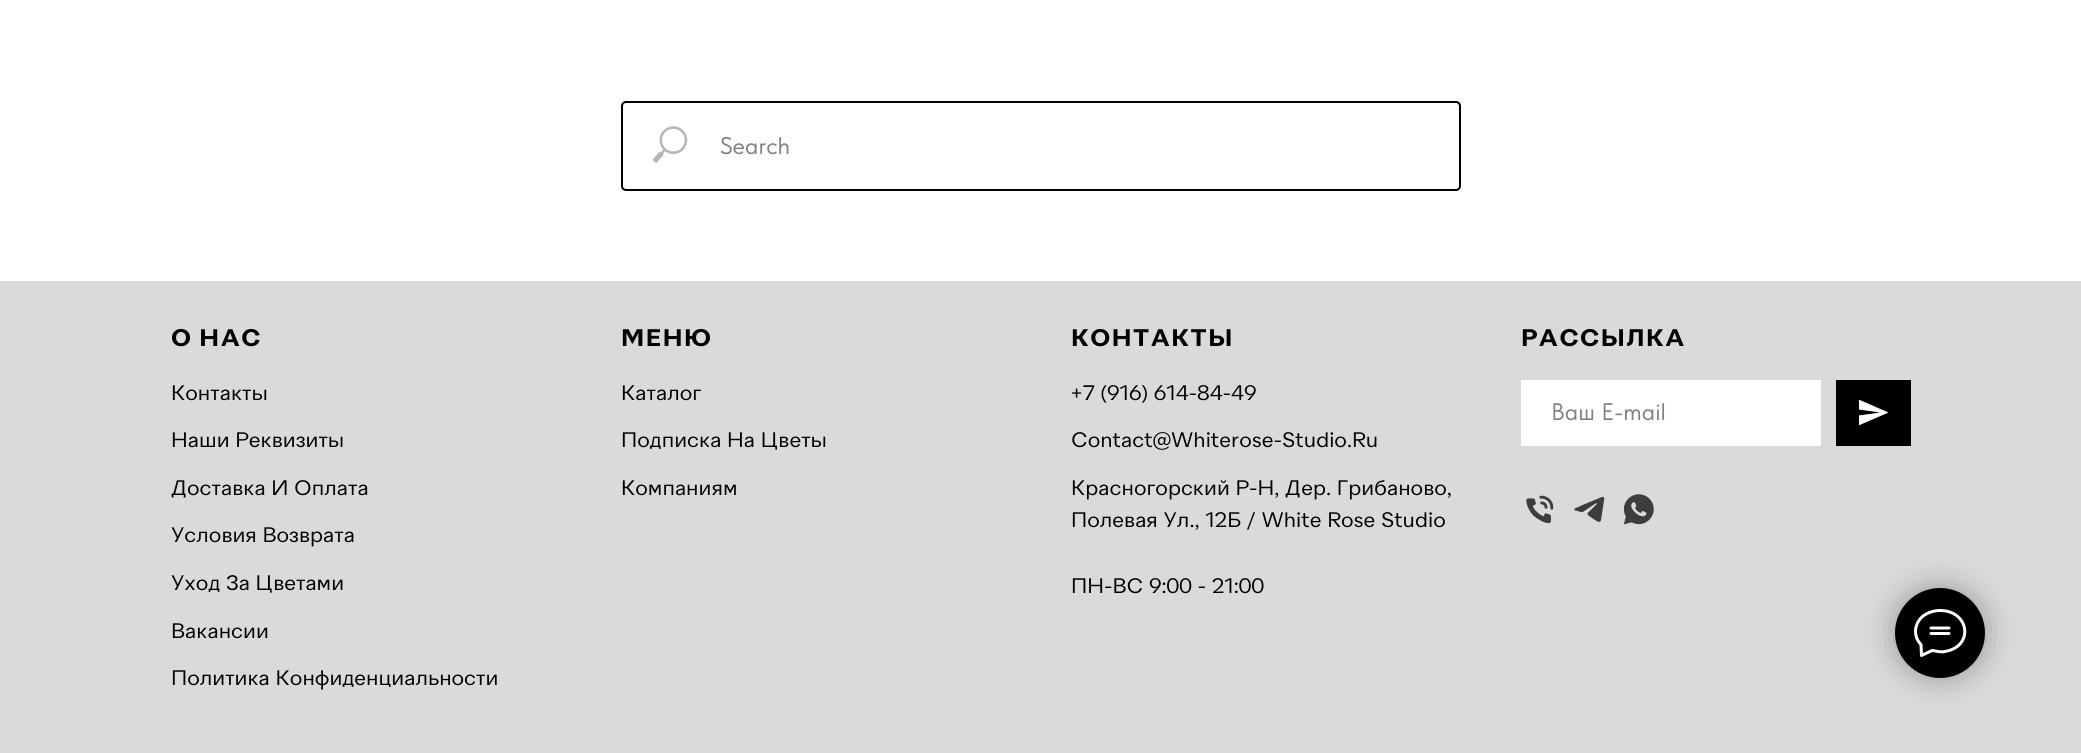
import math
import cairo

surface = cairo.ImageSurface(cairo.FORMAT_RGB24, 2081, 753)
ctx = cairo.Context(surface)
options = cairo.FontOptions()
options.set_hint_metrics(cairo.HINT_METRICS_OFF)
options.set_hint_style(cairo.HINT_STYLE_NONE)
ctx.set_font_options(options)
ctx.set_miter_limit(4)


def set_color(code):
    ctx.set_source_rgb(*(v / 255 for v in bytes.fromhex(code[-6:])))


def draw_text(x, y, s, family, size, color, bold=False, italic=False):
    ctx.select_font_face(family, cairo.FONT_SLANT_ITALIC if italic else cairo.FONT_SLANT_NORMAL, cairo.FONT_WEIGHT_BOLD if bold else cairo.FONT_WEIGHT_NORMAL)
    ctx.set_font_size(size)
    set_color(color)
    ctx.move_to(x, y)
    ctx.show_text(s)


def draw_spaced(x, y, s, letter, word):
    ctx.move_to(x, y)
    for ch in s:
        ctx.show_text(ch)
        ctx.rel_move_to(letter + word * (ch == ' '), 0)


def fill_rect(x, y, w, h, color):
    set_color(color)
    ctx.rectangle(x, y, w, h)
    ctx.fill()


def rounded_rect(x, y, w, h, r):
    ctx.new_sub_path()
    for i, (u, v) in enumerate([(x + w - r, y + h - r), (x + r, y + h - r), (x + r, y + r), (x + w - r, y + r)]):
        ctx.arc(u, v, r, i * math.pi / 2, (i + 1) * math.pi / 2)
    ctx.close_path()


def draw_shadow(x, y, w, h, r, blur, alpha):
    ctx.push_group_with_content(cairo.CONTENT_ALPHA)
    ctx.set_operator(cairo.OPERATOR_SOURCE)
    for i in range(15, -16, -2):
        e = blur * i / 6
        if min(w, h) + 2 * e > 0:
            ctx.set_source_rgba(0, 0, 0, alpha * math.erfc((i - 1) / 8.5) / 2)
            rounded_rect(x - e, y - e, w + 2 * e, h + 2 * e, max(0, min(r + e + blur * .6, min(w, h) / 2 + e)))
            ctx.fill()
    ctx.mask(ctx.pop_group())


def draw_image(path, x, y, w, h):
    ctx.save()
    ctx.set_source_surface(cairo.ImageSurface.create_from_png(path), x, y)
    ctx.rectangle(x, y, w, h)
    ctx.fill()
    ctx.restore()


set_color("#ffffff")
ctx.paint()
rounded_rect(622, 102, 838, 88, 4)
set_color("#000000")
ctx.stroke()
draw_image("assets/img1.png", 652, 126, 36, 38)
draw_text(720, 154, "Search", "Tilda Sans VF", 24, "#808080")
fill_rect(0, 281, 2081, 472, "#dadada")
ctx.select_font_face("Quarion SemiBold")
set_color("#000000")
draw_spaced(171, 346, "О НАС", 1.5, 0)
draw_text(171, 400, "Контакты", "Quarion", 21, "#000000")
draw_text(171, 447, "Наши Реквизиты", "Quarion", 21, "#000000")
draw_text(171, 495, "Доставка И Оплата", "Quarion", 21, "#000000")
draw_text(171, 542, "Условия Возврата", "Quarion", 21, "#000000")
draw_text(171, 590, "Уход За Цветами", "Quarion", 21, "#000000")
draw_text(171, 638, "Вакансии", "Quarion", 21, "#000000")
draw_text(171, 685, "Политика Конфиденциальности", "Quarion", 21, "#000000")
ctx.select_font_face("Quarion SemiBold")
ctx.set_font_size(24)
draw_spaced(621, 346, "МЕНЮ", 1.5, 0)
draw_text(621, 400, "Каталог", "Quarion", 21, "#000000")
draw_text(621, 447, "Подписка На Цветы", "Quarion", 21, "#000000")
draw_text(621, 495, "Компаниям", "Quarion", 21, "#000000")
ctx.select_font_face("Quarion SemiBold")
ctx.set_font_size(24)
draw_spaced(1071, 346, "КОНТАКТЫ", 1.5, 0)
draw_text(1071, 400, "+7 (916) 614-84-49", "Quarion", 21, "#000000")
draw_text(1071, 447, "Contact@Whiterose-Studio.Ru", "Quarion", 21, "#000000")
draw_text(1071, 495, "Красногорский Р-Н, Дер. Грибаново,", "Quarion", 21, "#000000")
draw_text(1071, 527, "Полевая Ул., 12Б / White Rose Studio", "Quarion", 21, "#000000")
draw_text(1071, 593, "ПН-ВС 9:00 - 21:00", "Quarion", 21, "#000000")
ctx.select_font_face("Quarion SemiBold")
ctx.set_font_size(24)
draw_spaced(1521, 346, "РАССЫЛКА", 1.5, 0)
fill_rect(1521, 380, 300, 66, "#ffffff")
draw_text(1551, 420, "Ваш E-mail", "Tilda Sans VF", 24, "#808080")
fill_rect(1836, 380, 75, 66, "#000000")
ctx.save()
ctx.rectangle(1859, 398, 30, 30)
ctx.clip()
set_color("#ffffff")
ctx.new_path()
ctx.move_to(1858.5, 425.5)
ctx.line_to(1888.5, 412.5)
ctx.line_to(1858.5, 399.5)
ctx.line_to(1858.5, 409.5)
ctx.line_to(1880, 412.5)
ctx.line_to(1858.5, 415.5)
ctx.close_path()
ctx.fill()
ctx.restore()
draw_image("assets/img2.png", 1526, 495, 28, 29)
draw_image("assets/img3.png", 1574, 496, 31, 26)
draw_image("assets/img4.png", 1623, 494, 31, 31)
set_color("#000000")
draw_shadow(1895, 588, 90, 90, 45, 15, 0.3)
set_color("#000000")
ctx.arc(1940, 633, 45, 0, 2 * math.pi)
ctx.fill()
ctx.new_path()
ctx.move_to(1931, 628)
ctx.line_to(1949, 628)
ctx.move_to(1931, 633.5)
ctx.line_to(1949, 633.5)
ctx.move_to(1921, 644.5)
ctx.curve_to(1913, 636.5, 1914, 624, 1922.5, 616.5)
ctx.curve_to(1927.5, 612.5, 1934, 610.5, 1940, 610.5)
ctx.curve_to(1969.5, 610.5, 1974.5, 646.5, 1945, 651.5)
ctx.curve_to(1940, 652.5, 1937, 651, 1932, 650.5)
ctx.line_to(1921.5, 655.5)
ctx.close_path()
set_color("#ffffff")
ctx.set_line_width(3)
ctx.set_line_cap(cairo.LINE_CAP_ROUND)
ctx.set_line_join(cairo.LINE_JOIN_ROUND)
ctx.stroke()
surface.write_to_png("output.png")
